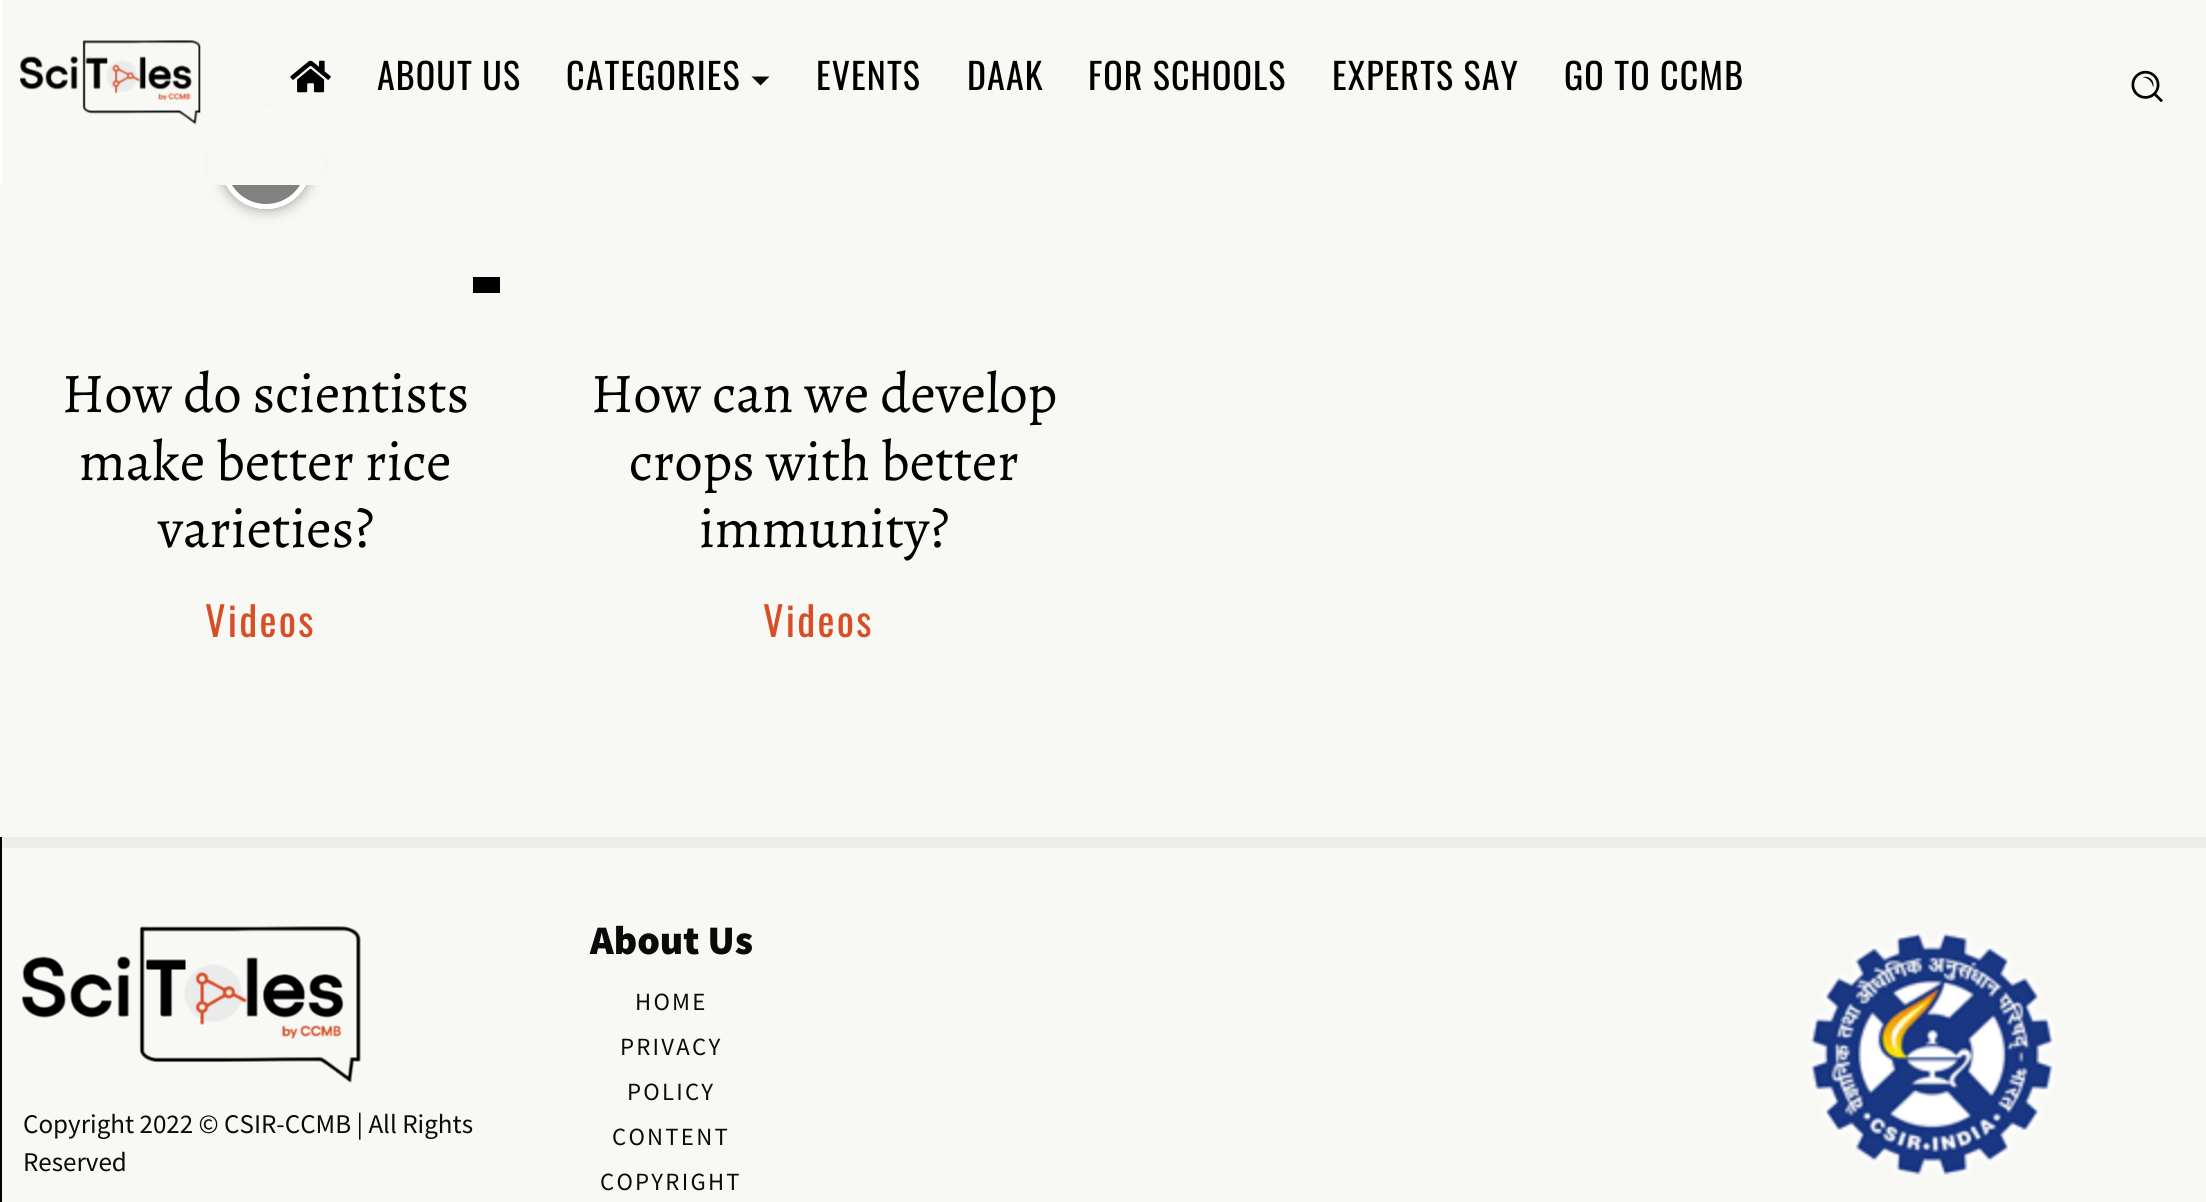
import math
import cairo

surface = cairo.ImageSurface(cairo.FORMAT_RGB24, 2206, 1202)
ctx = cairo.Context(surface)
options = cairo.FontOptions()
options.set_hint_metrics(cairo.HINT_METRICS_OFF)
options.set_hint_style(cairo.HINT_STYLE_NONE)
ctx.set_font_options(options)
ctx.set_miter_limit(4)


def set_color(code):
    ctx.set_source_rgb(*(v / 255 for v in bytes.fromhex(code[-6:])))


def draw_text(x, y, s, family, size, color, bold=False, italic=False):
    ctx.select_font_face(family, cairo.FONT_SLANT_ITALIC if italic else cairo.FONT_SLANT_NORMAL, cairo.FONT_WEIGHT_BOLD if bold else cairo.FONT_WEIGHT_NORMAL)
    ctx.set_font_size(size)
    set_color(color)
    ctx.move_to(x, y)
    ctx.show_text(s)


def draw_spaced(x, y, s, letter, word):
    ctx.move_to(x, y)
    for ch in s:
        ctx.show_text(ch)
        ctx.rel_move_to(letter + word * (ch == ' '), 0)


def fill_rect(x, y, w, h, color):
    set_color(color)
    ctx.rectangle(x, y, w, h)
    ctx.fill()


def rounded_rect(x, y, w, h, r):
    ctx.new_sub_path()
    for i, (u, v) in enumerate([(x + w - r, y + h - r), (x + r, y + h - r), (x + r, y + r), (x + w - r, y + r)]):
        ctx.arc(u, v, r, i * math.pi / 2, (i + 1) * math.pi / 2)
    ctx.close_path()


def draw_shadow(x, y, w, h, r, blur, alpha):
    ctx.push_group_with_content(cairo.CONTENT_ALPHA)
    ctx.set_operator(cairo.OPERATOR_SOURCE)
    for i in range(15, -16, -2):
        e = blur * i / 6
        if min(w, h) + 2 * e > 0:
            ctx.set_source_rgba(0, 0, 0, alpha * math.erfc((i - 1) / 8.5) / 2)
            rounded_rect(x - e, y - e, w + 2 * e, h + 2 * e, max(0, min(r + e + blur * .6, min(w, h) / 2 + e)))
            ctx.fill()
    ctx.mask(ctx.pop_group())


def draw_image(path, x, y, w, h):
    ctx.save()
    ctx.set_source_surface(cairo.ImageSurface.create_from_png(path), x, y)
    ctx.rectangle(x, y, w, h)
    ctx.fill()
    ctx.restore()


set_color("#f8f9f5")
ctx.paint()
fill_rect(0, 0, 2, 185, "#ffffff")
ctx.save()
ctx.set_fill_rule(cairo.FILL_RULE_EVEN_ODD)
ctx.new_path()
ctx.move_to(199, 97)
ctx.line_to(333, 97)
ctx.line_to(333, 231)
ctx.line_to(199, 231)
ctx.close_path()
ctx.move_to(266, 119)
ctx.curve_to(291, 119, 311, 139, 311, 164)
ctx.curve_to(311, 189, 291, 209, 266, 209)
ctx.curve_to(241, 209, 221, 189, 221, 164)
ctx.curve_to(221, 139, 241, 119, 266, 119)
ctx.close_path()
ctx.clip()
set_color("#000000")
draw_shadow(221, 119, 90, 90, 45, 7, 0.4)
ctx.restore()
draw_image("assets/img1.png", 20, 40, 181, 85)
draw_image("assets/img2.png", 290, 60, 41, 33)
ctx.select_font_face("Oswald")
ctx.set_font_size(36)
set_color("#000000")
draw_spaced(377, 90, "ABOUT US", 1.1, 0)
draw_spaced(566, 90, "CATEGORIES", 1.1, 0)
set_color("#0a0a0a")
ctx.new_path()
ctx.move_to(751.5, 76.5)
ctx.line_to(769.5, 76.5)
ctx.line_to(760.5, 85.5)
ctx.close_path()
ctx.fill()
set_color("#000000")
draw_spaced(816, 90, "EVENTS", 1.1, 0)
draw_spaced(967, 90, "DAAK", 1.1, 0)
draw_spaced(1088, 90, "FOR SCHOOLS", 1.1, 0)
draw_spaced(1332, 90, "EXPERTS SAY", 1.1, 0)
draw_spaced(1564, 90, "GO TO CCMB", 1.1, 0)
draw_image("assets/img3.png", 2131, 70, 32, 33)
ctx.set_source_rgba(0, 0, 0, 0.48)
ctx.arc(266, 164, 42.5, 0, 2 * math.pi)
ctx.fill_preserve()
set_color("#ffffff")
ctx.set_line_width(5)
ctx.stroke()
fill_rect(208, 106, 116, 79, "#f8f9f5")
fill_rect(473, 277, 27, 16, "#000000")
draw_text(62, 412, "How do scientists", "Alegreya", 56.25, "#000000")
draw_text(79, 480, "make better rice", "Alegreya", 56.25, "#000000")
draw_text(158, 547, "varieties?", "Alegreya", 56.25, "#000000")
ctx.select_font_face("Oswald")
ctx.set_font_size(40.5)
set_color("#d74e27")
draw_spaced(205, 637, "Videos", 2.25, 0)
draw_text(591, 412, "How can we develop", "Alegreya", 56.25, "#000000")
draw_text(629, 480, "crops with better", "Alegreya", 56.25, "#000000")
draw_text(699, 547, "immunity?", "Alegreya", 56.25, "#000000")
ctx.select_font_face("Oswald")
ctx.set_font_size(40.5)
set_color("#d74e27")
draw_spaced(763, 637, "Videos", 2.25, 0)
fill_rect(0, 837, 2, 365, "#000000")
fill_rect(2, 837, 2204, 11, "#edeeea")
draw_image("assets/img4.png", 22, 926, 339, 157)
draw_text(23, 1133, "Copyright 2022 © CSIR-CCMB | All Rights", "Source Sans Pro", 27, "#0a0a0a")
draw_text(23, 1171, "Reserved", "Source Sans Pro", 27, "#0a0a0a")
draw_text(590, 954, "About Us", "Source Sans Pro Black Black", 40.5, "#0a0a0a")
ctx.select_font_face("Source Sans Pro")
ctx.set_font_size(24.75)
draw_spaced(635, 1010, "HOME", 2.25, 0)
draw_spaced(620, 1055, "PRIVACY", 2.25, 0)
draw_spaced(627, 1100, "POLICY", 2.25, 0)
draw_spaced(612, 1145, "CONTENT", 2.25, 0)
draw_spaced(600, 1190, "COPYRIGHT", 2.25, 0)
draw_image("assets/img5.png", 1809, 931, 246, 244)
surface.write_to_png("output.png")
